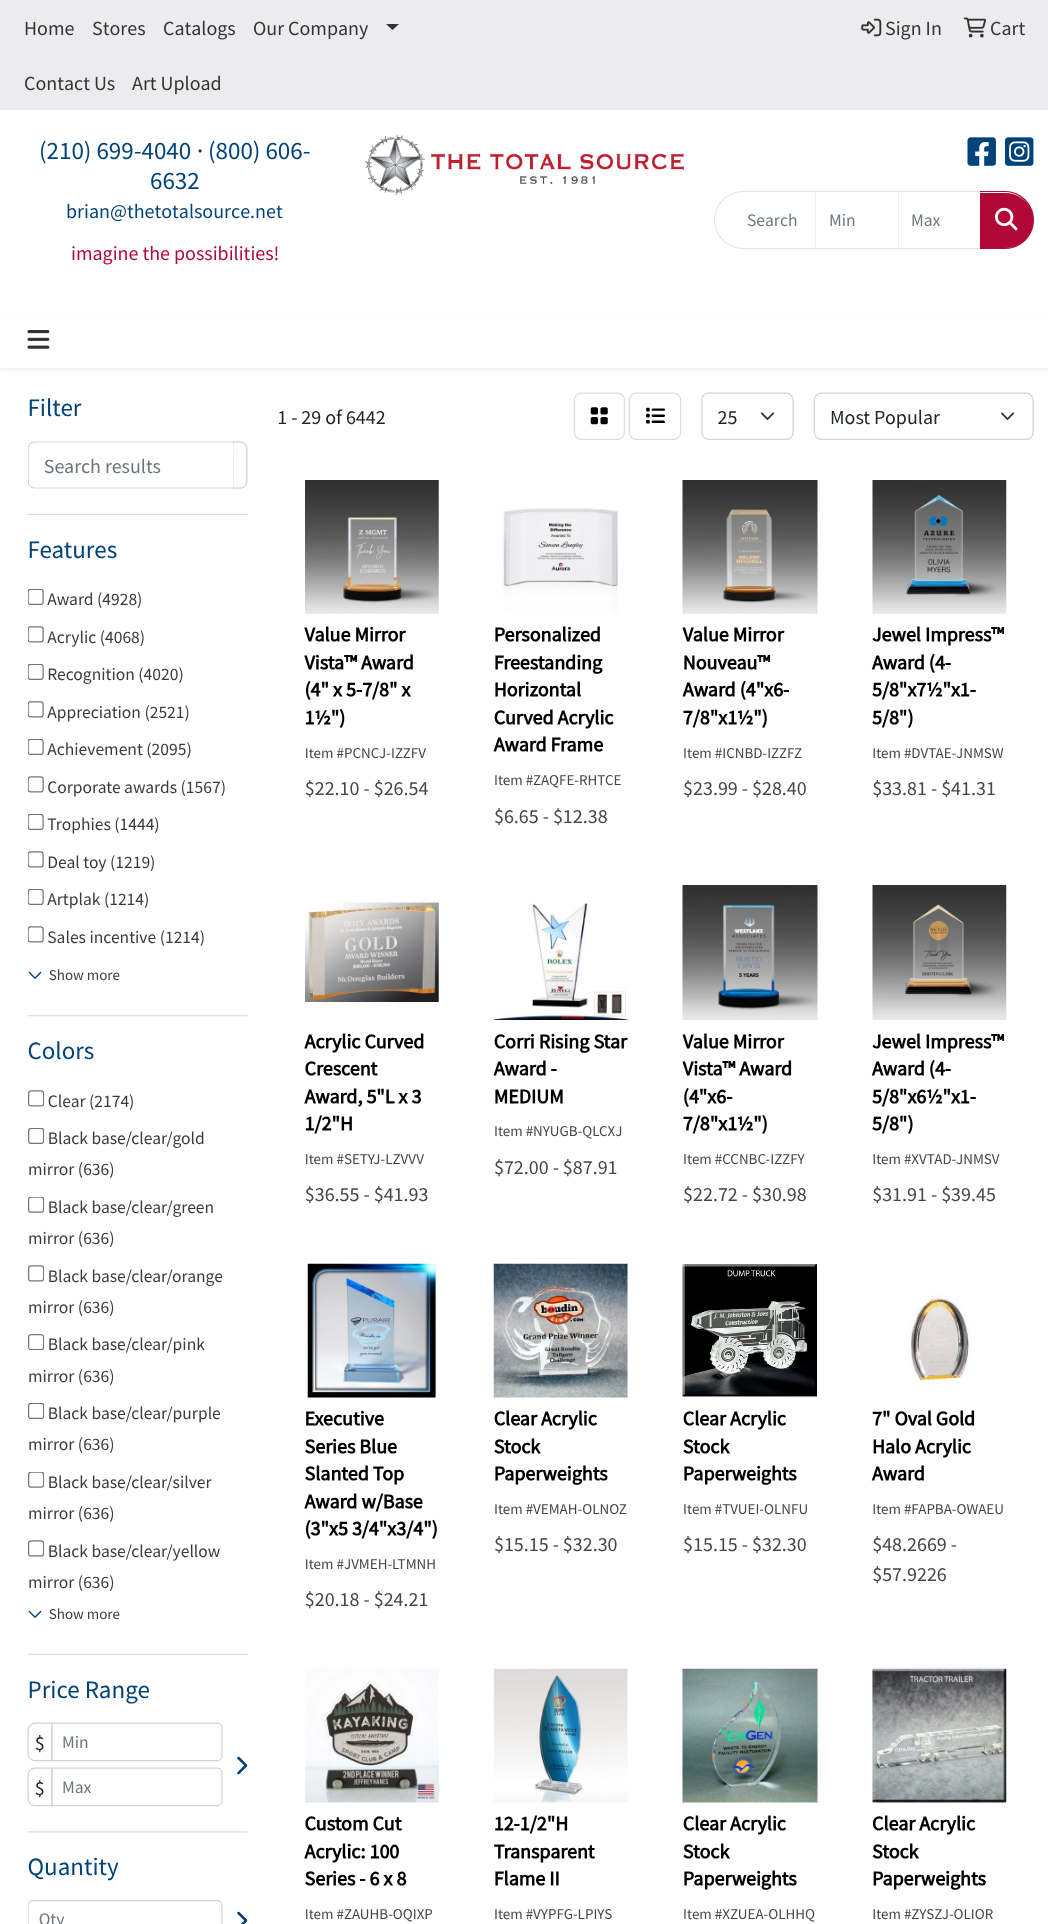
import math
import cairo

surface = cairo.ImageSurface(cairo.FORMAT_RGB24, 1048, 1924)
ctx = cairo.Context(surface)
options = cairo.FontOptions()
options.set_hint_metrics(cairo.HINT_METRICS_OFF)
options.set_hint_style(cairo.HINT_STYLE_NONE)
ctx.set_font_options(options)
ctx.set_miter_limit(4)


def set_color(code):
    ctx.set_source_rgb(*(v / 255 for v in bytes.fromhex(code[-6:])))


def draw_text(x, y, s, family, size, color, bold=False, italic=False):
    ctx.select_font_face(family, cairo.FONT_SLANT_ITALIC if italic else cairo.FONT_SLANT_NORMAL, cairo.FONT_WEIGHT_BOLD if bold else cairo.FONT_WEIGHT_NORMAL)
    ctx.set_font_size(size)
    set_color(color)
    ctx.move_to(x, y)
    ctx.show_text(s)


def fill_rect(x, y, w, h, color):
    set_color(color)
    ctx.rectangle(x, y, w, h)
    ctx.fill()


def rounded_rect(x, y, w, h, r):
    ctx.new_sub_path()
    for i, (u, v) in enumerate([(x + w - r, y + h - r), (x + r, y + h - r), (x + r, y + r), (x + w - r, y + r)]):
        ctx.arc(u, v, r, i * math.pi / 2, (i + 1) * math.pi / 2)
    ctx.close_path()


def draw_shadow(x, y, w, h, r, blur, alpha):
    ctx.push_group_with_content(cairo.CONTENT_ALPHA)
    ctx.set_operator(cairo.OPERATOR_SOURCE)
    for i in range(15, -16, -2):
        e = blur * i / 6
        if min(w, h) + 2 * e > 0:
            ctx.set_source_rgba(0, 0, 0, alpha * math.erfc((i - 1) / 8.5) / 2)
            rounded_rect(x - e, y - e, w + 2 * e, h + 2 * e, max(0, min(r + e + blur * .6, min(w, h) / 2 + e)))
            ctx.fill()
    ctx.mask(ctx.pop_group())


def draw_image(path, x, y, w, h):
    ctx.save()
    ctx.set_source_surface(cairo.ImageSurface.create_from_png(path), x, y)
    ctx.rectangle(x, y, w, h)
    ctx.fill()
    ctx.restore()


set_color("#ffffff")
ctx.paint()
fill_rect(0, 0, 1048, 110, "#ececee")
draw_text(24, 35, "Home", "Source Sans Pro", 20, "#333333")
draw_text(92, 35, "Stores", "Source Sans Pro", 20, "#333333")
draw_text(163, 35, "Catalogs", "Source Sans Pro", 20, "#333333")
draw_text(253, 35, "Our Company", "Source Sans Pro", 20, "#333333")
ctx.new_path()
ctx.move_to(386, 24)
ctx.line_to(399, 24)
ctx.line_to(392.5, 30)
ctx.close_path()
ctx.fill()
draw_text(24, 90, "Contact Us", "Source Sans Pro", 20, "#333333")
draw_text(132, 90, "Art Upload", "Source Sans Pro", 20, "#333333")
draw_image("assets/img1.png", 861, 18, 21, 19)
draw_text(885, 35, "Sign In", "Source Sans Pro", 20, "#333333")
draw_image("assets/img2.png", 963, 17, 23, 21)
draw_text(990, 35, "Cart", "Source Sans Pro", 20, "#333333")
draw_text(39, 159, "(210) 699-4040", "Source Sans Pro", 25, "#00427a")
draw_text(197, 159, "·", "Source Sans Pro", 25, "#212529")
draw_text(208, 159, "(800) 606-", "Source Sans Pro", 25, "#00427a")
draw_text(150, 189, "6632", "Source Sans Pro", 25, "#00427a")
draw_text(66, 218, "brian@thetotalsource.net", "Source Sans Pro", 20, "#00427a")
draw_text(71, 260, "imagine the possibilities!", "Source Sans Pro", 20, "#b20838")
draw_image("assets/img3.png", 365, 135, 319, 60)
draw_image("assets/img4.png", 967, 137, 29, 29)
draw_image("assets/img5.png", 1005, 137, 29, 29)
ctx.new_path()
ctx.move_to(743, 191.5)
ctx.line_to(815.5, 191.5)
ctx.line_to(815.5, 248.5)
ctx.line_to(743, 248.5)
ctx.curve_to(727.5, 248.5, 714.5, 235.5, 714.5, 220)
ctx.curve_to(714.5, 204.5, 727.5, 191.5, 743, 191.5)
ctx.close_path()
set_color("#e4e4e4")
ctx.set_line_width(1)
ctx.stroke()
draw_text(747, 226, "Search", "Source Sans Pro", 17.5, "#6c757d")
fill_rect(815, 191, 166, 1, "#e4e4e4")
fill_rect(815, 248, 166, 1, "#e4e4e4")
fill_rect(815, 191, 1, 58, "#efefef")
draw_text(829, 226, "Min", "Source Sans Pro", 17.5, "#6c757d")
fill_rect(980, 191, 1, 2, "#efefef")
fill_rect(898, 191, 1, 58, "#efefef")
draw_text(911, 226, "Max", "Source Sans Pro", 17.5, "#6c757d")
set_color("#b20837")
ctx.new_path()
ctx.move_to(980, 193)
ctx.line_to(1005.5, 193)
ctx.curve_to(1020.5, 193, 1033, 205.5, 1033, 220.5)
ctx.curve_to(1033, 235.5, 1020.5, 248, 1005.5, 248)
ctx.line_to(980, 248)
ctx.close_path()
ctx.fill()
ctx.set_fill_rule(cairo.FILL_RULE_EVEN_ODD)
ctx.new_path()
ctx.move_to(980, 191)
ctx.line_to(1005, 191)
ctx.curve_to(1021, 191, 1034, 204, 1034, 220)
ctx.curve_to(1034, 236, 1021, 249, 1005, 249)
ctx.line_to(980, 249)
ctx.close_path()
ctx.move_to(980, 192)
ctx.line_to(1005, 192)
ctx.curve_to(1020, 192, 1032, 205, 1032, 220)
ctx.curve_to(1032, 235, 1020, 248, 1005, 248)
ctx.line_to(980, 248)
ctx.close_path()
ctx.fill()
draw_image("assets/img6.png", 995, 207, 23, 24)
ctx.save()
ctx.new_path()
ctx.move_to(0, 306)
ctx.line_to(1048, 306)
ctx.line_to(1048, 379)
ctx.line_to(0, 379)
ctx.close_path()
ctx.move_to(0, 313)
ctx.line_to(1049, 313)
ctx.line_to(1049, 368)
ctx.line_to(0, 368)
ctx.close_path()
ctx.clip()
set_color("#000000")
draw_shadow(0, 315, 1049, 55, 0, 2.5, 0.07)
ctx.restore()
draw_image("assets/img7.png", 27, 330, 23, 19)
draw_image("assets/img8.png", 27, 392, 1007, 1532)
surface.write_to_png("output.png")
